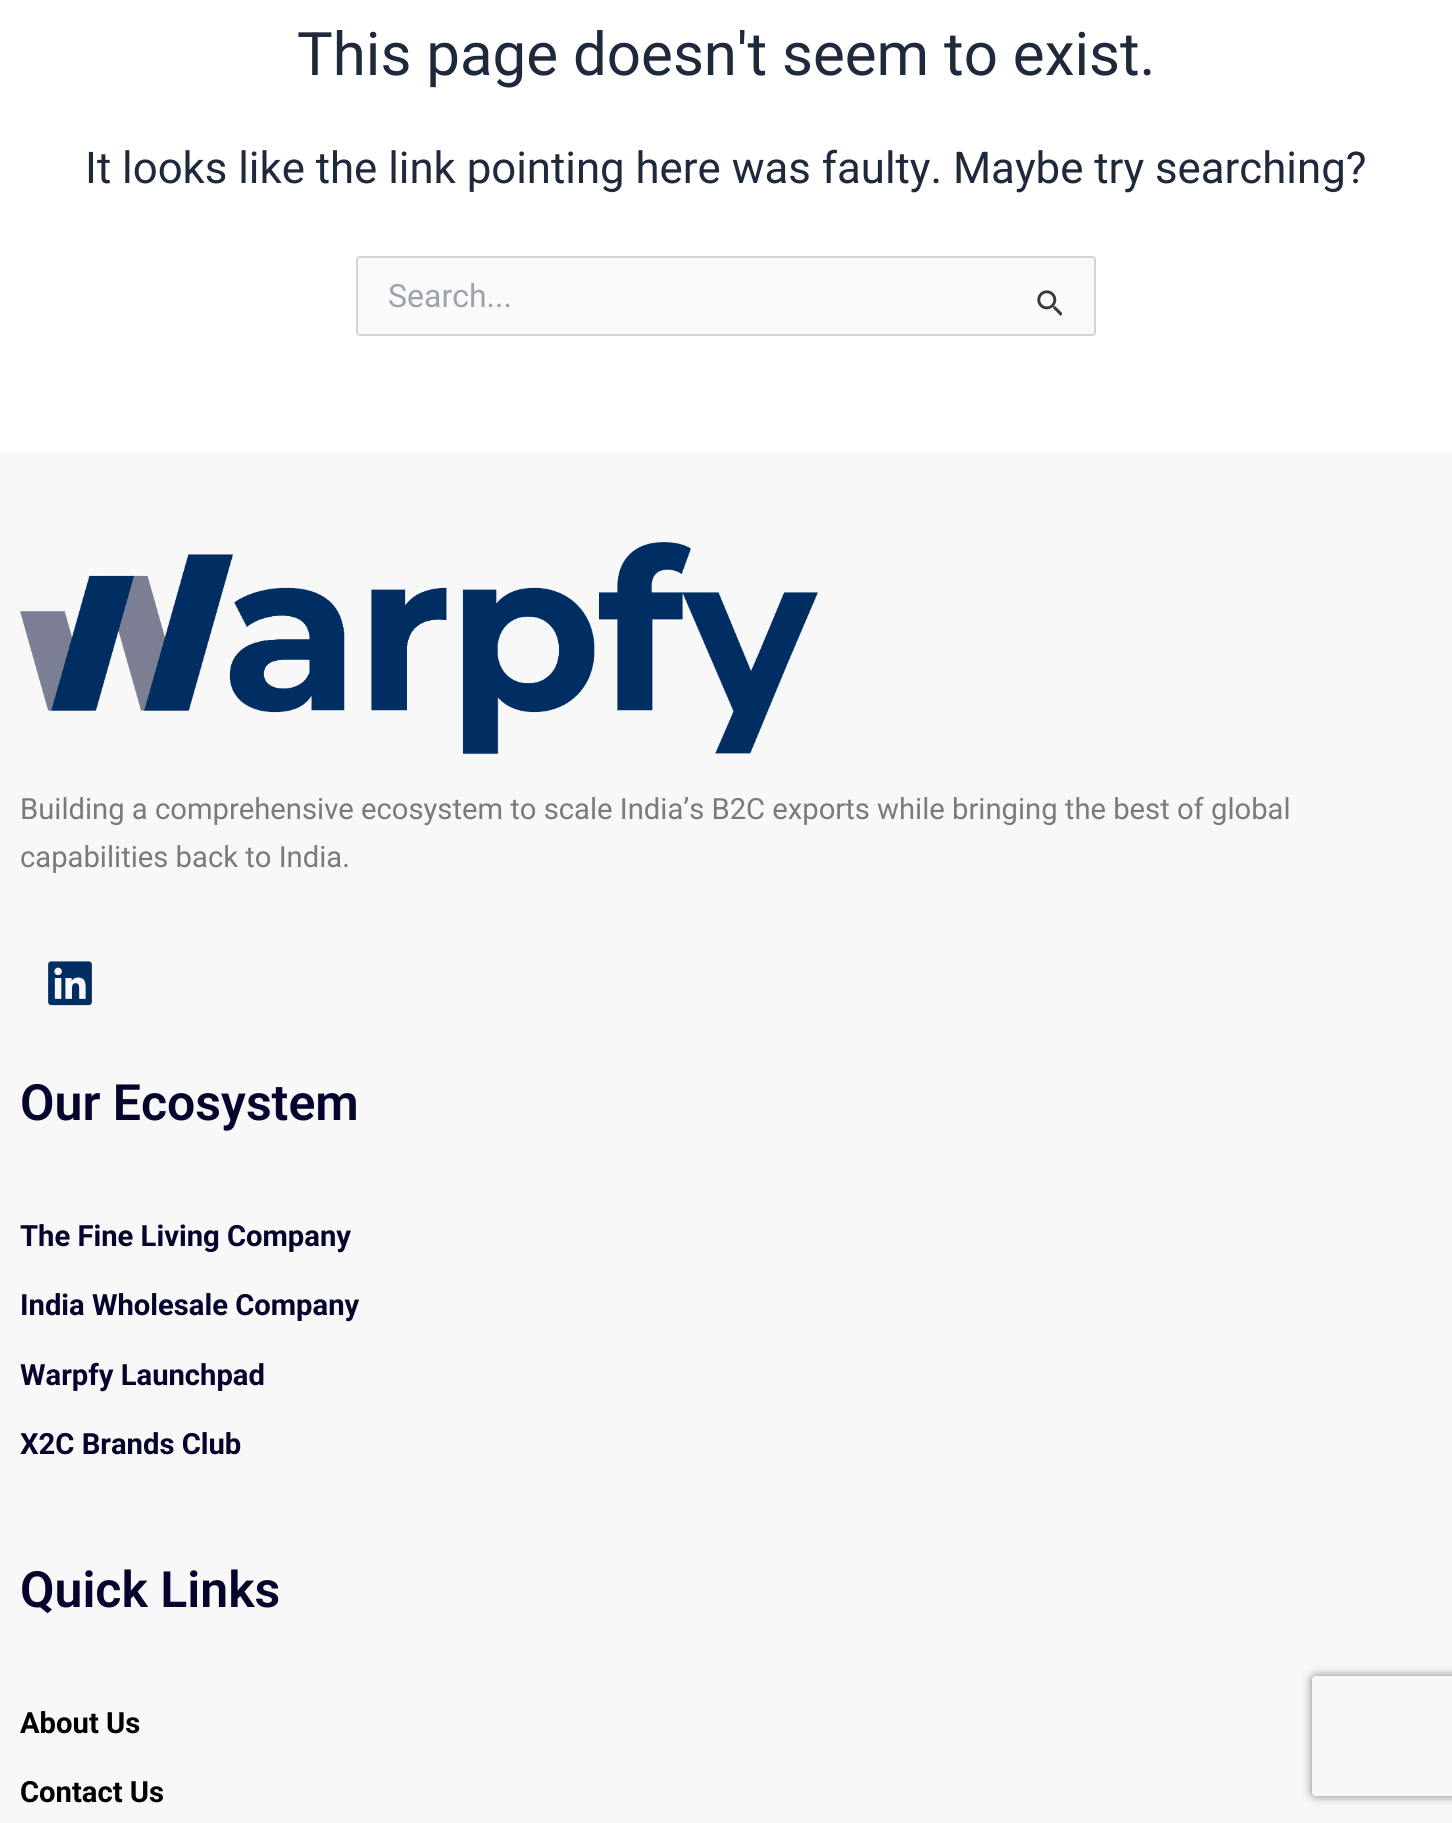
import math
import cairo

surface = cairo.ImageSurface(cairo.FORMAT_RGB24, 1452, 1823)
ctx = cairo.Context(surface)
options = cairo.FontOptions()
options.set_hint_metrics(cairo.HINT_METRICS_OFF)
options.set_hint_style(cairo.HINT_STYLE_NONE)
ctx.set_font_options(options)
ctx.set_miter_limit(4)


def set_color(code):
    ctx.set_source_rgb(*(v / 255 for v in bytes.fromhex(code[-6:])))


def draw_text(x, y, s, family, size, color, bold=False, italic=False):
    ctx.select_font_face(family, cairo.FONT_SLANT_ITALIC if italic else cairo.FONT_SLANT_NORMAL, cairo.FONT_WEIGHT_BOLD if bold else cairo.FONT_WEIGHT_NORMAL)
    ctx.set_font_size(size)
    set_color(color)
    ctx.move_to(x, y)
    ctx.show_text(s)


def fill_rect(x, y, w, h, color):
    set_color(color)
    ctx.rectangle(x, y, w, h)
    ctx.fill()


def rounded_rect(x, y, w, h, r):
    ctx.new_sub_path()
    for i, (u, v) in enumerate([(x + w - r, y + h - r), (x + r, y + h - r), (x + r, y + r), (x + w - r, y + r)]):
        ctx.arc(u, v, r, i * math.pi / 2, (i + 1) * math.pi / 2)
    ctx.close_path()


def draw_shadow(x, y, w, h, r, blur, alpha):
    ctx.push_group_with_content(cairo.CONTENT_ALPHA)
    ctx.set_operator(cairo.OPERATOR_SOURCE)
    for i in range(15, -16, -2):
        e = blur * i / 6
        if min(w, h) + 2 * e > 0:
            ctx.set_source_rgba(0, 0, 0, alpha * math.erfc((i - 1) / 8.5) / 2)
            rounded_rect(x - e, y - e, w + 2 * e, h + 2 * e, max(0, min(r + e + blur * .6, min(w, h) / 2 + e)))
            ctx.fill()
    ctx.mask(ctx.pop_group())


def draw_image(path, x, y, w, h):
    ctx.save()
    ctx.set_source_surface(cairo.ImageSurface.create_from_png(path), x, y)
    ctx.rectangle(x, y, w, h)
    ctx.fill()
    ctx.restore()


set_color("#ffffff")
ctx.paint()
draw_text(297, 75, "This page doesn't seem to exist.", "Roboto", 60, "#1e293b")
draw_text(85, 183, "It looks like the link pointing here was faulty. Maybe try searching?", "Roboto", 43.75, "#1e293b")
set_color("#fafafa")
rounded_rect(357, 257, 738, 78, 3)
ctx.fill_preserve()
set_color("#d1d5db")
ctx.stroke()
draw_text(388, 307, "Search...", "Roboto", 32, "#9ca3af")
draw_image("assets/img1.png", 1037, 290, 25, 26)
fill_rect(0, 452, 1452, 1371, "#f8f8f8")
draw_image("assets/img2.png", 20, 542, 798, 212)
draw_text(20, 819, "Building a comprehensive ecosystem to scale India’s B2C exports while bringing the best of global", "Roboto", 29.2, "#7a7a7a")
draw_text(20, 867, "capabilities back to India.", "Roboto", 29.2, "#7a7a7a")
draw_image("assets/img3.png", 48, 961, 44, 45)
draw_text(20, 1120, "Our Ecosystem", "Roboto SemiBold", 50, "#04042c")
draw_text(20, 1246, "The Fine Living Company", "Roboto", 29.2, "#04042c", bold=True)
draw_text(20, 1315, "India Wholesale Company", "Roboto", 29.2, "#04042c", bold=True)
draw_text(20, 1385, "Warpfy Launchpad", "Roboto", 29.2, "#04042c", bold=True)
draw_text(20, 1454, "X2C Brands Club", "Roboto", 29.2, "#04042c", bold=True)
draw_text(20, 1607, "Quick Links", "Roboto SemiBold", 50, "#04042c")
draw_text(20, 1733, "About Us", "Roboto", 29.2, "#000000", bold=True)
draw_text(20, 1802, "Contact Us", "Roboto", 29.2, "#000000", bold=True)
ctx.save()
ctx.set_fill_rule(cairo.FILL_RULE_EVEN_ODD)
ctx.new_path()
ctx.move_to(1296, 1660)
ctx.line_to(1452, 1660)
ctx.line_to(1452, 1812)
ctx.line_to(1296, 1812)
ctx.close_path()
ctx.move_to(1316, 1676)
ctx.line_to(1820, 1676)
ctx.curve_to(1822, 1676, 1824, 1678, 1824, 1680)
ctx.line_to(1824, 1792)
ctx.curve_to(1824, 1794, 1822, 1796, 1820, 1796)
ctx.line_to(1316, 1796)
ctx.curve_to(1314, 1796, 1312, 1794, 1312, 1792)
ctx.line_to(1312, 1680)
ctx.curve_to(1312, 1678, 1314, 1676, 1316, 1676)
ctx.close_path()
ctx.clip()
set_color("#808080")
draw_shadow(1312, 1676, 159, 120, 4, 5, 1)
ctx.restore()
surface.write_to_png("output.png")
